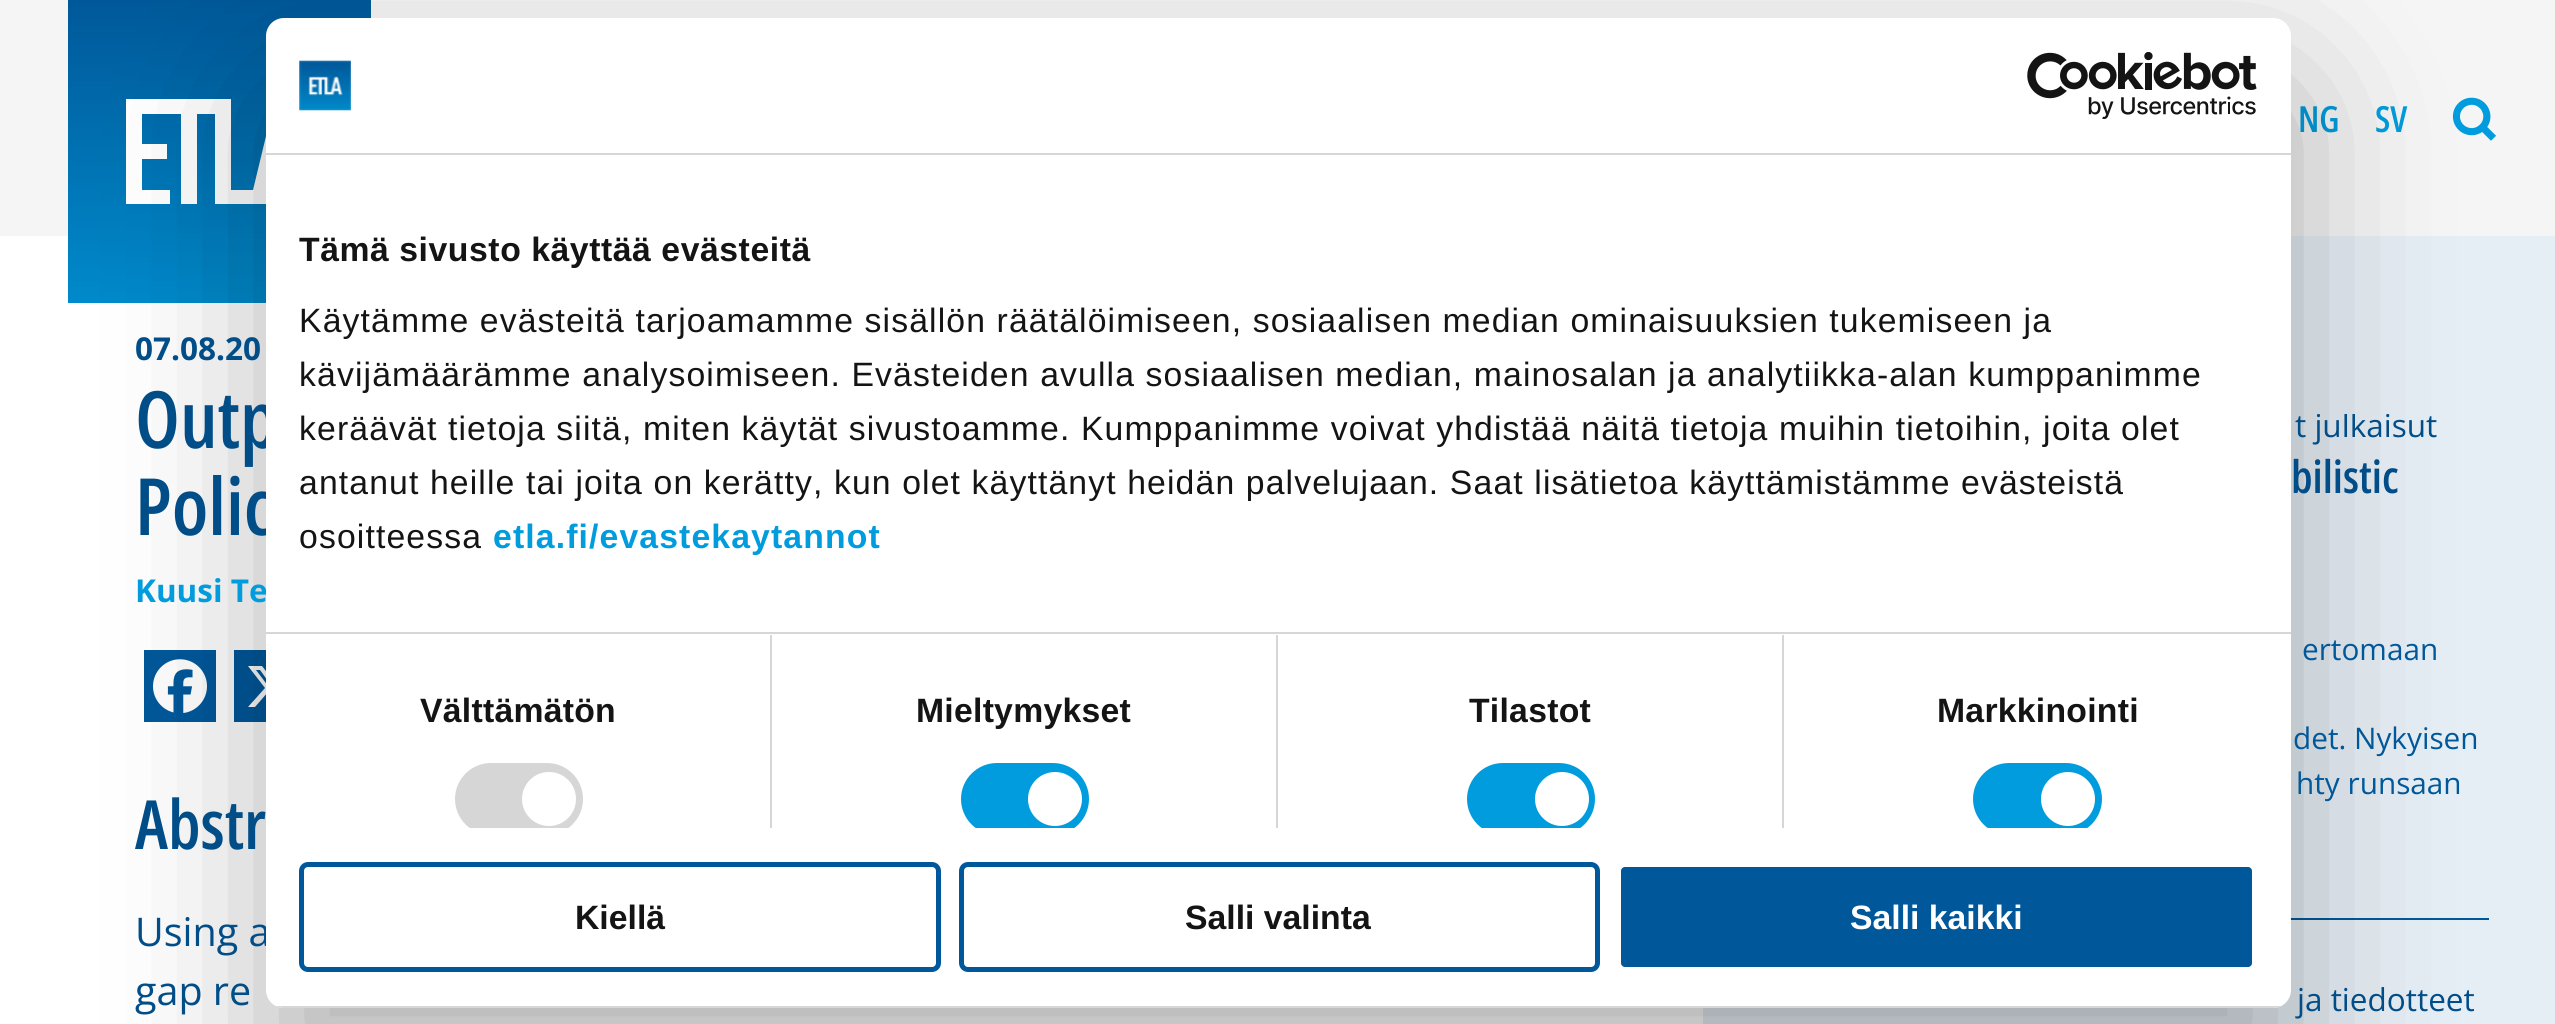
import math
import cairo

surface = cairo.ImageSurface(cairo.FORMAT_RGB24, 2555, 1024)
ctx = cairo.Context(surface)
options = cairo.FontOptions()
options.set_hint_metrics(cairo.HINT_METRICS_OFF)
options.set_hint_style(cairo.HINT_STYLE_NONE)
ctx.set_font_options(options)
ctx.set_miter_limit(4)


def set_color(code):
    ctx.set_source_rgb(*(v / 255 for v in bytes.fromhex(code[-6:])))


def draw_text(x, y, s, family, size, color, bold=False, italic=False):
    ctx.select_font_face(family, cairo.FONT_SLANT_ITALIC if italic else cairo.FONT_SLANT_NORMAL, cairo.FONT_WEIGHT_BOLD if bold else cairo.FONT_WEIGHT_NORMAL)
    ctx.set_font_size(size)
    set_color(color)
    ctx.move_to(x, y)
    ctx.show_text(s)


def draw_spaced(x, y, s, letter, word):
    ctx.move_to(x, y)
    for ch in s:
        ctx.show_text(ch)
        ctx.rel_move_to(letter + word * (ch == ' '), 0)


def fill_rect(x, y, w, h, color):
    set_color(color)
    ctx.rectangle(x, y, w, h)
    ctx.fill()


def rounded_rect(x, y, w, h, r):
    ctx.new_sub_path()
    for i, (u, v) in enumerate([(x + w - r, y + h - r), (x + r, y + h - r), (x + r, y + r), (x + w - r, y + r)]):
        ctx.arc(u, v, r, i * math.pi / 2, (i + 1) * math.pi / 2)
    ctx.close_path()


def draw_shadow(x, y, w, h, r, blur, alpha):
    ctx.push_group_with_content(cairo.CONTENT_ALPHA)
    ctx.set_operator(cairo.OPERATOR_SOURCE)
    for i in range(15, -16, -2):
        e = blur * i / 6
        if min(w, h) + 2 * e > 0:
            ctx.set_source_rgba(0, 0, 0, alpha * math.erfc((i - 1) / 8.5) / 2)
            rounded_rect(x - e, y - e, w + 2 * e, h + 2 * e, max(0, min(r + e + blur * .6, min(w, h) / 2 + e)))
            ctx.fill()
    ctx.mask(ctx.pop_group())


def draw_image(path, x, y, w, h):
    ctx.save()
    ctx.set_source_surface(cairo.ImageSurface.create_from_png(path), x, y)
    ctx.rectangle(x, y, w, h)
    ctx.fill()
    ctx.restore()


set_color("#f5f5f5")
ctx.paint()
fill_rect(0, 236, 1703, 788, "#ffffff")
gradient = cairo.LinearGradient(223, 406, 223, -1.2)
gradient.add_color_stop_rgba(0, 0, 0.608, 0.863, 1)
gradient.add_color_stop_rgba(1, 0, 0.345, 0.6, 1)
ctx.set_source(gradient)
ctx.rectangle(68, 0, 303, 303)
ctx.fill()
set_color("#ffffff")
ctx.new_path()
ctx.move_to(291, 99)
ctx.line_to(316, 204)
ctx.line_to(300, 204)
ctx.line_to(295, 184)
ctx.line_to(270, 184)
ctx.line_to(266, 204)
ctx.line_to(215, 204)
ctx.line_to(215, 114)
ctx.line_to(197, 114)
ctx.line_to(197, 204)
ctx.line_to(181, 204)
ctx.line_to(181, 114)
ctx.line_to(142, 114)
ctx.line_to(142, 144)
ctx.line_to(167, 144)
ctx.line_to(167, 159)
ctx.line_to(142, 159)
ctx.line_to(142, 190)
ctx.line_to(170, 190)
ctx.line_to(170, 204)
ctx.line_to(126, 204)
ctx.line_to(126, 99)
ctx.line_to(231, 99)
ctx.line_to(231, 190)
ctx.line_to(253, 190)
ctx.line_to(275, 99)
ctx.close_path()
ctx.move_to(283, 124)
ctx.line_to(273, 169)
ctx.line_to(292, 169)
ctx.close_path()
ctx.fill()
draw_text(2298, 132, "NG", "Open Sans SemiBold", 36, "#009cdd")
draw_text(2375, 132, "SV", "Open Sans SemiBold", 36, "#009cdd")
draw_image("assets/img1.png", 2452, 97, 44, 44)
fill_rect(144, 650, 72, 72, "#00589a")
draw_image("assets/img4.png", 153, 659, 54, 54)
fill_rect(234, 650, 32, 72, "#00589a")
set_color("#ffffff")
ctx.new_path()
ctx.move_to(283, 666)
ctx.line_to(290, 666)
ctx.line_to(275, 683)
ctx.line_to(292, 707)
ctx.line_to(279, 707)
ctx.line_to(268, 692)
ctx.line_to(255, 707)
ctx.line_to(248, 707)
ctx.line_to(265, 688)
ctx.line_to(248, 666)
ctx.line_to(262, 666)
ctx.line_to(272, 679)
ctx.close_path()
ctx.move_to(281, 703)
ctx.line_to(284, 703)
ctx.line_to(260, 670)
ctx.line_to(256, 670)
ctx.close_path()
ctx.fill()
fill_rect(1703, 236, 852, 788, "#e6eef5")
fill_rect(2291, 918, 198, 2, "#00589a")
set_color("#000000")
draw_shadow(266, 90, 2025, 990, 18, 76.5, 0.3)
draw_text(135, 448, "Outp", "Open Sans SemiBold", 79, "#004d88")
draw_text(135, 535, "Polic", "Open Sans SemiBold", 79, "#004d88")
draw_text(135, 602, "Kuusi Te", "Open Sans", 31.5, "#009cdd", bold=True)
draw_text(135, 849, "Abstr", "Open Sans SemiBold", 68, "#004d88")
draw_text(135, 946, "Using a", "Open Sans", 39.5, "#004d88")
set_color("#ffffff")
rounded_rect(266, 18, 2025, 990, 18)
ctx.fill()
fill_rect(266, 153, 2025, 2, "#d6d6d6")
draw_image("assets/img2.png", 299, 60, 52, 51)
draw_image("assets/img3.png", 2027, 52, 230, 67)
fill_rect(266, 632, 2025, 2, "#d6d6d6")
ctx.select_font_face("Liberation Sans", cairo.FONT_SLANT_NORMAL, cairo.FONT_WEIGHT_BOLD)
ctx.set_font_size(33.75)
set_color("#141414")
draw_spaced(299, 261, "Tämä sivusto käyttää evästeitä", 0.55, 0)
ctx.select_font_face("Liberation Sans")
draw_spaced(299, 332, "Käytämme evästeitä tarjoamamme sisällön räätälöimiseen, sosiaalisen median ominaisuuksien tukemiseen ja", 1.12, 0)
draw_spaced(299, 386, "kävijämäärämme analysoimiseen. Evästeiden avulla sosiaalisen median, mainosalan ja analytiikka-alan kumppanimme", 1.12, 0)
draw_spaced(299, 440, "keräävät tietoja siitä, miten käytät sivustoamme. Kumppanimme voivat yhdistää näitä tietoja muihin tietoihin, joita olet", 1.12, 0)
draw_spaced(299, 494, "antanut heille tai joita on kerätty, kun olet käyttänyt heidän palvelujaan. Saat lisätietoa käyttämistämme evästeistä", 1.12, 0)
draw_spaced(299, 548, "osoitteessa", 1.12, 0)
ctx.select_font_face("Liberation Sans", cairo.FONT_SLANT_NORMAL, cairo.FONT_WEIGHT_BOLD)
set_color("#009cdd")
draw_spaced(493, 548, "etla.fi/evastekaytannot", 1.12, 0)
fill_rect(770, 635, 2, 193, "#d6d6d6")
set_color("#141414")
draw_spaced(420, 722, "Välttämätön", 0.25, 0)
ctx.save()
ctx.rectangle(266, 155, 2025, 673)
ctx.clip()
set_color("#d6d6d6")
rounded_rect(455, 763, 128, 72, 36)
ctx.fill()
ctx.restore()
set_color("#ffffff")
ctx.arc(549, 799, 27, 0, 2 * math.pi)
ctx.fill()
fill_rect(1276, 635, 2, 193, "#d6d6d6")
set_color("#141414")
draw_spaced(916, 722, "Mieltymykset", 0.25, 0)
ctx.save()
ctx.rectangle(266, 155, 2025, 673)
ctx.clip()
set_color("#009cdd")
rounded_rect(961, 763, 128, 72, 36)
ctx.fill()
ctx.restore()
set_color("#ffffff")
ctx.arc(1055, 799, 27, 0, 2 * math.pi)
ctx.fill()
fill_rect(1782, 635, 2, 193, "#d6d6d6")
set_color("#141414")
draw_spaced(1469, 722, "Tilastot", 0.25, 0)
ctx.save()
ctx.rectangle(266, 155, 2025, 673)
ctx.clip()
set_color("#009cdd")
rounded_rect(1467, 763, 128, 72, 36)
ctx.fill()
ctx.restore()
set_color("#ffffff")
ctx.arc(1562, 799, 27, 0, 2 * math.pi)
ctx.fill()
set_color("#141414")
draw_spaced(1937, 722, "Markkinointi", 0.25, 0)
ctx.save()
ctx.rectangle(266, 155, 2025, 673)
ctx.clip()
set_color("#009cdd")
rounded_rect(1973, 763, 129, 72, 36)
ctx.fill()
ctx.restore()
set_color("#ffffff")
ctx.arc(2068, 799, 27, 0, 2 * math.pi)
ctx.fill()
ctx.save()
rounded_rect(266, 18, 2025, 990, 18)
ctx.clip()
fill_rect(276, 1006, 2005, 2, "#d6d6d6")
ctx.restore()
rounded_rect(301.5, 864.5, 637, 105, 6.5)
set_color("#00589a")
ctx.set_line_width(5)
ctx.stroke()
draw_text(575, 929, "Kiellä", "Liberation Sans", 33.75, "#141414", bold=True)
rounded_rect(961.5, 864.5, 636, 105, 6.5)
set_color("#00589a")
ctx.stroke()
draw_text(1185, 929, "Salli valinta", "Liberation Sans", 33.75, "#141414", bold=True)
set_color("#00589a")
rounded_rect(1618.5, 864.5, 636, 105, 6.5)
ctx.fill_preserve()
set_color("#ffffff")
ctx.stroke()
draw_text(1850, 929, "Salli kaikki", "Liberation Sans", 33.75, "#ffffff", bold=True)
draw_text(135, 360, "07.08.20", "Open Sans", 31.5, "#004d88", bold=True)
draw_text(135, 1005, "gap re", "Open Sans", 39.5, "#004d88")
ctx.save()
ctx.rectangle(1771, 414, 718, 36)
ctx.clip()
draw_text(2295, 437, "t julkaisut", "Open Sans", 31.5, "#004d88")
ctx.restore()
draw_text(2291, 493, "bilistic", "Open Sans SemiBold", 45, "#004d88")
draw_text(2302, 660, "ertomaan", "Open Sans", 29.75, "#00589a")
draw_text(2293, 749, "det. Nykyisen", "Open Sans", 29.75, "#00589a")
draw_text(2296, 794, "hty runsaan", "Open Sans", 29.75, "#00589a")
draw_text(2297, 1011, "ja tiedotteet", "Open Sans", 31.5, "#004d88")
surface.write_to_png("output.png")
